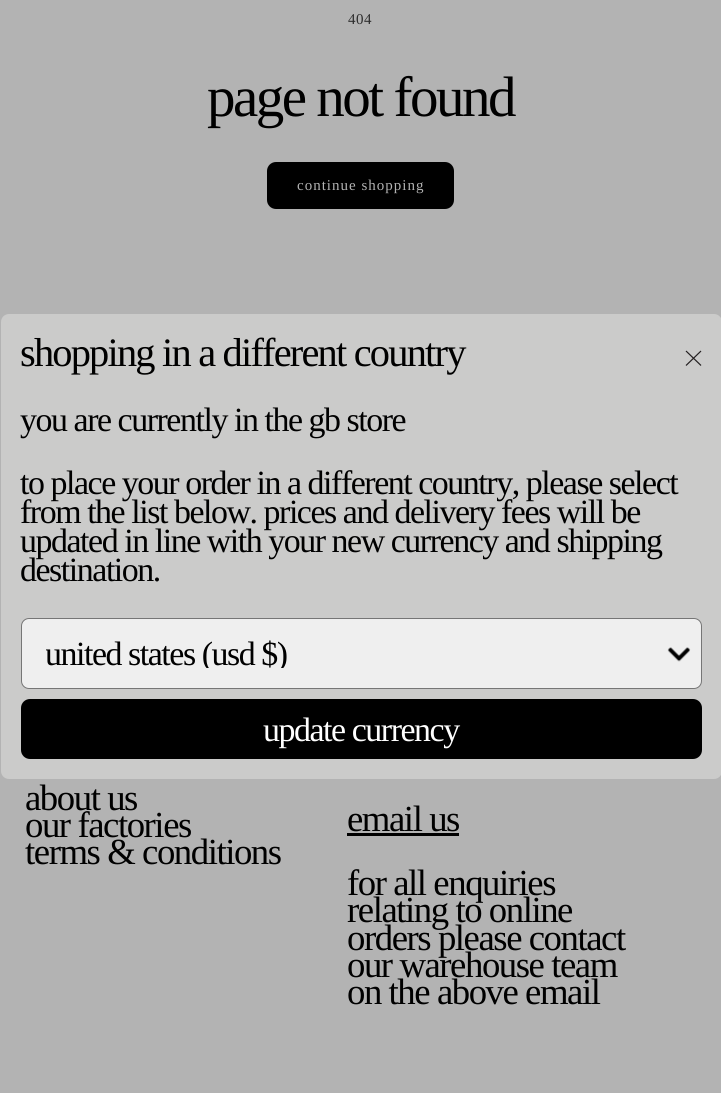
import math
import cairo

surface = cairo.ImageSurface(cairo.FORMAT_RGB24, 721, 1093)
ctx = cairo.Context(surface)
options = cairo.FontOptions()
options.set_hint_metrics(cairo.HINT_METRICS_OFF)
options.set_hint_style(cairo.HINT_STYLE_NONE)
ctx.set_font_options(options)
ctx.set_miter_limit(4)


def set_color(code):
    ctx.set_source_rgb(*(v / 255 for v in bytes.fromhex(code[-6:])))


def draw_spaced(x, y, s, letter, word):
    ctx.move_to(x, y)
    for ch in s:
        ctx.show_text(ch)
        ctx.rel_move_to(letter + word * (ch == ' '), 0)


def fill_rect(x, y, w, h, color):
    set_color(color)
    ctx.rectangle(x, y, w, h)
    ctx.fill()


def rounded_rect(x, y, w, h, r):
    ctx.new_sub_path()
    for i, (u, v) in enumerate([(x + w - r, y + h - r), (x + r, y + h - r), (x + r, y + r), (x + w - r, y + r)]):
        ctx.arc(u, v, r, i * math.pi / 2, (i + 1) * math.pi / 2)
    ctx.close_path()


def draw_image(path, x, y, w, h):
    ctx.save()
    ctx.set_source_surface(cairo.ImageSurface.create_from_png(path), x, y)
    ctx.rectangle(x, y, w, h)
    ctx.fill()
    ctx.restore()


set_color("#b3b3b3")
ctx.paint()
ctx.select_font_face("Liberation Serif")
ctx.set_font_size(15)
set_color("#2d2d2d")
draw_spaced(348, 24, "404", 0.5, 0)
ctx.set_font_size(57)
set_color("#000000")
draw_spaced(207, 116, "page not found", -2.5, 0)
rounded_rect(267, 162, 187, 47, 9)
ctx.fill()
ctx.set_font_size(15)
set_color("#b3b3b3")
draw_spaced(297, 190, "continue shopping", 1, 0)
set_color("#cbcbca")
rounded_rect(1, 314, 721, 465, 8)
ctx.fill()
ctx.set_font_size(40.4)
set_color("#000000")
draw_spaced(20, 366, "shopping in a different country", -1.8, 0)
ctx.new_path()
ctx.move_to(686, 351)
ctx.line_to(701, 365.5)
ctx.move_to(701, 351)
ctx.line_to(686, 365.5)
set_color("#231f20")
ctx.set_line_width(1.2)
ctx.stroke()
ctx.set_font_size(33.9)
set_color("#000000")
draw_spaced(20, 431, "you are currently in the gb store", -1.45, 0)
draw_spaced(20, 494, "to place your order in a different country, please select", -1.45, 0)
draw_spaced(20, 523, "from the list below. prices and delivery fees will be", -1.45, 0)
draw_spaced(20, 552, "updated in line with your new currency and shipping", -1.45, 0)
draw_spaced(20, 581, "destination.", -1.45, 0)
set_color("#efefef")
rounded_rect(21.5, 618.5, 680, 70, 7.5)
ctx.fill_preserve()
set_color("#767676")
ctx.set_line_width(1)
ctx.stroke()
ctx.save()
ctx.rectangle(46, 639, 655, 29)
ctx.clip()
set_color("#000000")
draw_spaced(45, 665, "united states (usd $)", -1.45, 0)
ctx.restore()
draw_image("assets/img1.png", 667, 647, 24, 15)
set_color("#000000")
rounded_rect(21, 699, 681, 60, 9)
ctx.fill()
set_color("#ffffff")
draw_spaced(263, 741, "update currency", -1.45, 0)
ctx.set_font_size(36.75)
set_color("#000000")
draw_spaced(25, 810, "about us", -1.45, 0)
draw_spaced(25, 837, "our factories", -1.45, 0)
draw_spaced(25, 864, "terms & conditions", -1.45, 0)
draw_spaced(347, 831, "email us", -1.45, 0)
fill_rect(347, 833, 112, 3, "#000000")
draw_spaced(347, 895, "for all enquiries", -1.45, 0)
draw_spaced(347, 922, "relating to online", -1.45, 0)
draw_spaced(347, 950, "orders please contact", -1.45, 0)
draw_spaced(347, 977, "our warehouse team", -1.45, 0)
draw_spaced(347, 1004, "on the above email", -1.45, 0)
surface.write_to_png("output.png")
